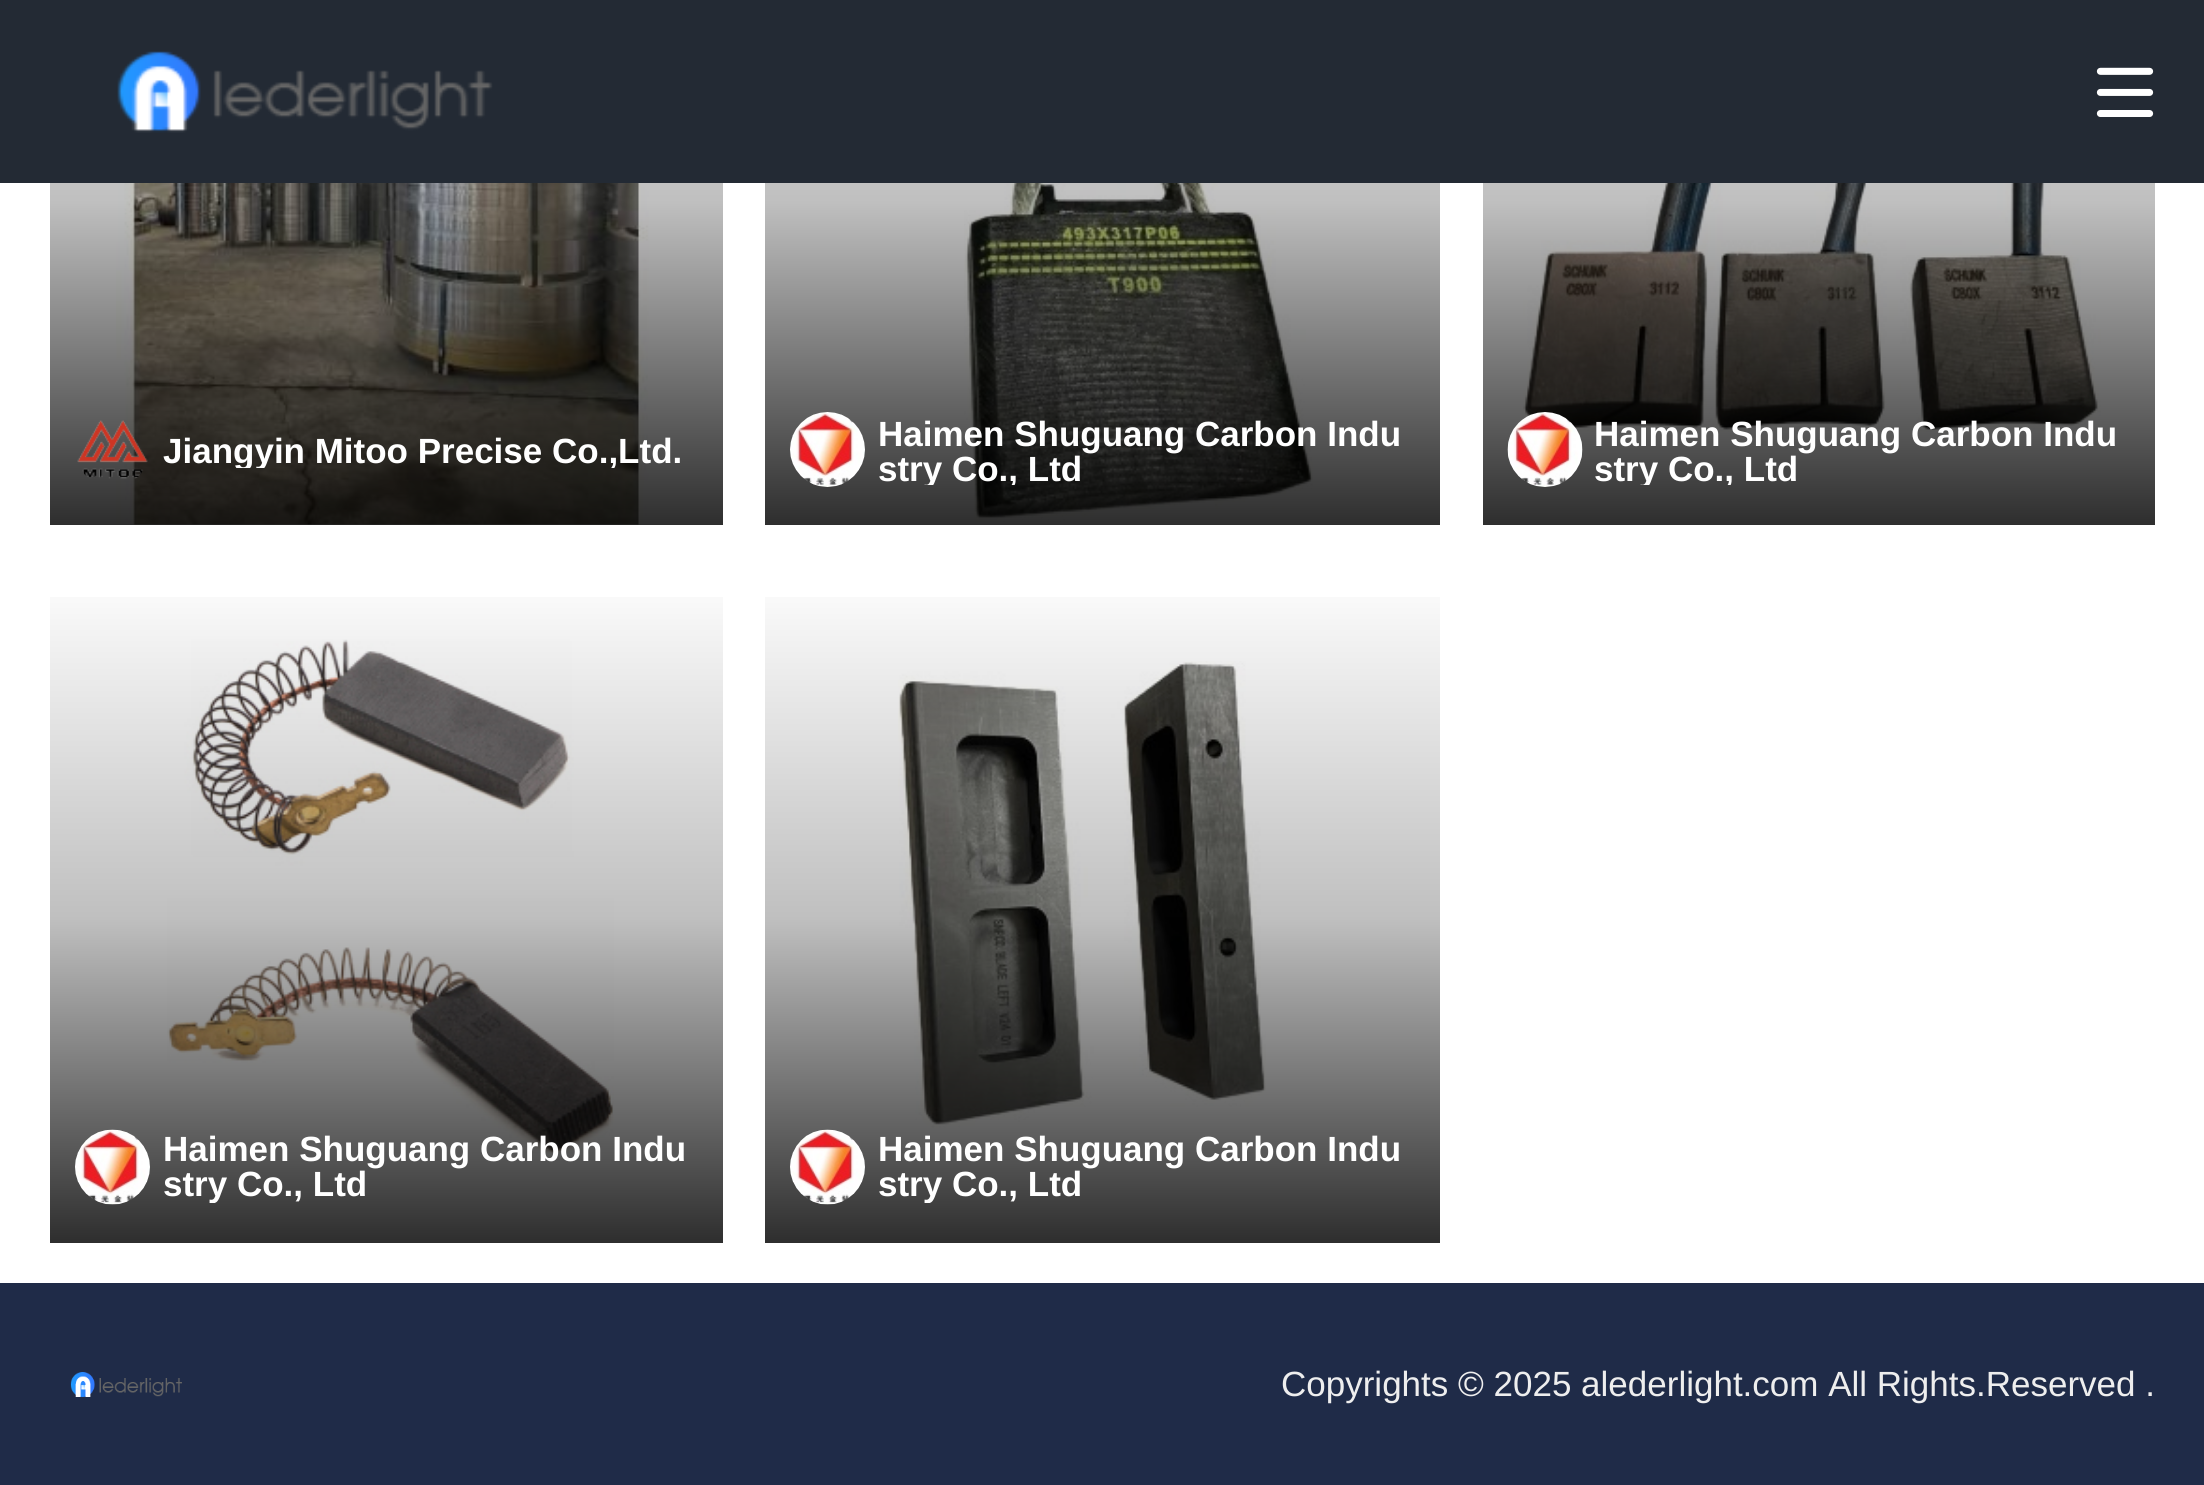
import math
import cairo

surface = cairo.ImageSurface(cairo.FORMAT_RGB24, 2204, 1485)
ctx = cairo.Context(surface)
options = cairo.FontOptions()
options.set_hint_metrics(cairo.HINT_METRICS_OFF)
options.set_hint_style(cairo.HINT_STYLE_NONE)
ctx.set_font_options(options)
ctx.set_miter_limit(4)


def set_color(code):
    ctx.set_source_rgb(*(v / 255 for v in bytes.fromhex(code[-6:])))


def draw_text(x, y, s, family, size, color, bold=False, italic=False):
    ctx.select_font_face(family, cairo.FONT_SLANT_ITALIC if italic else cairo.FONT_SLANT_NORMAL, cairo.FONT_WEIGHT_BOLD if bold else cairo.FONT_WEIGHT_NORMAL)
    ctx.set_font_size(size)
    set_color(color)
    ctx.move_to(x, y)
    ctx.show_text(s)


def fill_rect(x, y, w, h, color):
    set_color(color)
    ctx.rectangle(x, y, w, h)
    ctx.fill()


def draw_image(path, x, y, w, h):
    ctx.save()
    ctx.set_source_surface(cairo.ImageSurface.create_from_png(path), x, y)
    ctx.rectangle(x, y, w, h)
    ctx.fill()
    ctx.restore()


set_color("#ffffff")
ctx.paint()
fill_rect(0, 0, 2204, 183, "#232a34")
draw_image("assets/img1.png", 117, 51, 376, 82)
draw_image("assets/img2.png", 2096, 67, 58, 50)
draw_image("assets/img3.png", 116, 183, 533, 342)
gradient = cairo.LinearGradient(386, -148, 386, 525)
gradient.add_color_stop_rgba(0, 0, 0, 0, 0)
gradient.add_color_stop_rgba(0.52, 0, 0, 0, 0.25)
gradient.add_color_stop_rgba(1, 0, 0, 0, 0.82)
ctx.set_source(gradient)
ctx.rectangle(50, 183, 673, 342)
ctx.fill()
draw_image("assets/img4.png", 77, 420, 71, 59)
ctx.save()
ctx.rectangle(163, 433, 535, 35)
ctx.clip()
draw_text(163, 463, "Jiangyin Mitoo Precise Co.,Ltd.", "Liberation Sans", 35, "#ffffff", bold=True)
ctx.restore()
draw_image("assets/img5.png", 964, 183, 349, 339)
gradient = cairo.LinearGradient(1103, -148, 1103, 525)
gradient.add_color_stop_rgba(0, 0, 0, 0, 0)
gradient.add_color_stop_rgba(0.52, 0, 0, 0, 0.25)
gradient.add_color_stop_rgba(1, 0, 0, 0, 0.82)
ctx.set_source(gradient)
ctx.rectangle(765, 183, 675, 342)
ctx.fill()
draw_image("assets/img6.png", 790, 412, 75, 75)
draw_text(878, 446, "Haimen Shuguang Carbon Indu", "Liberation Sans", 35, "#ffffff", bold=True)
ctx.save()
ctx.rectangle(878, 415, 537, 70)
ctx.clip()
draw_text(878, 481, "stry Co., Ltd", "Liberation Sans", 35, "#ffffff", bold=True)
ctx.restore()
draw_image("assets/img7.png", 1523, 183, 578, 249)
gradient = cairo.LinearGradient(1819, -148, 1819, 525)
gradient.add_color_stop_rgba(0, 0, 0, 0, 0)
gradient.add_color_stop_rgba(0.52, 0, 0, 0, 0.25)
gradient.add_color_stop_rgba(1, 0, 0, 0, 0.82)
ctx.set_source(gradient)
ctx.rectangle(1483, 183, 672, 342)
ctx.fill()
draw_image("assets/img8.png", 1507, 412, 76, 75)
draw_text(1594, 446, "Haimen Shuguang Carbon Indu", "Liberation Sans", 35, "#ffffff", bold=True)
ctx.save()
ctx.rectangle(1595, 415, 535, 70)
ctx.clip()
draw_text(1594, 481, "stry Co., Ltd", "Liberation Sans", 35, "#ffffff", bold=True)
ctx.restore()
draw_image("assets/img9.png", 167, 639, 447, 516)
gradient = cairo.LinearGradient(386, 567, 386, 1243)
gradient.add_color_stop_rgba(0, 0, 0, 0, 0)
gradient.add_color_stop_rgba(0.52, 0, 0, 0, 0.25)
gradient.add_color_stop_rgba(1, 0, 0, 0, 0.82)
ctx.set_source(gradient)
ctx.rectangle(50, 597, 673, 646)
ctx.fill()
draw_image("assets/img10.png", 75, 1129, 75, 76)
draw_text(163, 1161, "Haimen Shuguang Carbon Indu", "Liberation Sans", 35, "#ffffff", bold=True)
ctx.save()
ctx.rectangle(163, 1133, 535, 70)
ctx.clip()
draw_text(163, 1196, "stry Co., Ltd", "Liberation Sans", 35, "#ffffff", bold=True)
ctx.restore()
draw_image("assets/img11.png", 898, 661, 368, 467)
gradient = cairo.LinearGradient(1103, 567, 1103, 1243)
gradient.add_color_stop_rgba(0, 0, 0, 0, 0)
gradient.add_color_stop_rgba(0.52, 0, 0, 0, 0.25)
gradient.add_color_stop_rgba(1, 0, 0, 0, 0.82)
ctx.set_source(gradient)
ctx.rectangle(765, 597, 675, 646)
ctx.fill()
draw_image("assets/img12.png", 790, 1129, 75, 76)
draw_text(878, 1161, "Haimen Shuguang Carbon Indu", "Liberation Sans", 35, "#ffffff", bold=True)
ctx.save()
ctx.rectangle(878, 1133, 537, 70)
ctx.clip()
draw_text(878, 1196, "stry Co., Ltd", "Liberation Sans", 35, "#ffffff", bold=True)
ctx.restore()
fill_rect(0, 1283, 2204, 202, "#1f2b48")
draw_image("assets/img13.png", 70, 1372, 112, 25)
draw_text(1281, 1396, "Copyrights © 2025 alederlight.com All Rights.Reserved .", "Liberation Sans", 35, "#eeeeee")
surface.write_to_png("output.png")
